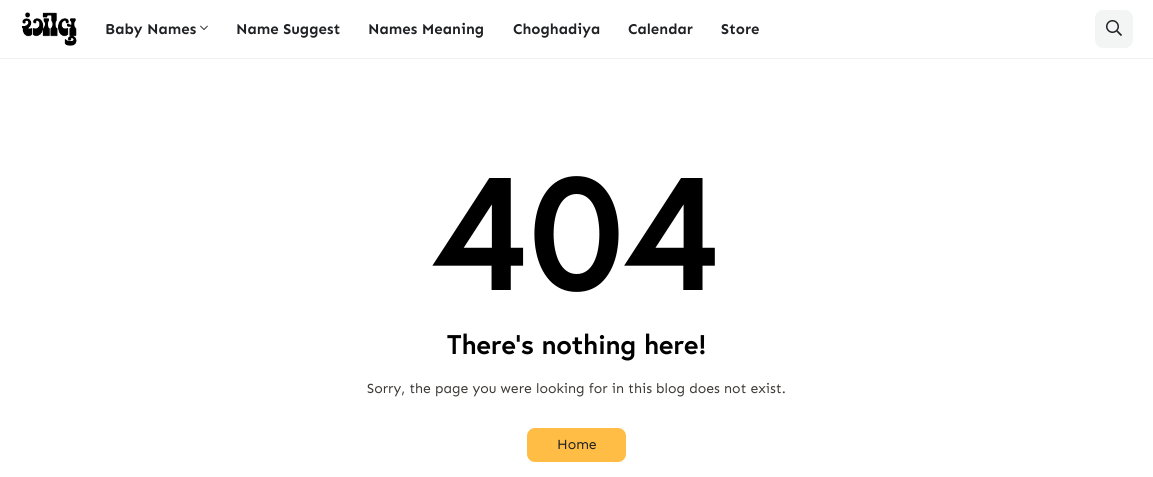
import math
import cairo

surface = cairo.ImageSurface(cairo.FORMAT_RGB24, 1153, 477)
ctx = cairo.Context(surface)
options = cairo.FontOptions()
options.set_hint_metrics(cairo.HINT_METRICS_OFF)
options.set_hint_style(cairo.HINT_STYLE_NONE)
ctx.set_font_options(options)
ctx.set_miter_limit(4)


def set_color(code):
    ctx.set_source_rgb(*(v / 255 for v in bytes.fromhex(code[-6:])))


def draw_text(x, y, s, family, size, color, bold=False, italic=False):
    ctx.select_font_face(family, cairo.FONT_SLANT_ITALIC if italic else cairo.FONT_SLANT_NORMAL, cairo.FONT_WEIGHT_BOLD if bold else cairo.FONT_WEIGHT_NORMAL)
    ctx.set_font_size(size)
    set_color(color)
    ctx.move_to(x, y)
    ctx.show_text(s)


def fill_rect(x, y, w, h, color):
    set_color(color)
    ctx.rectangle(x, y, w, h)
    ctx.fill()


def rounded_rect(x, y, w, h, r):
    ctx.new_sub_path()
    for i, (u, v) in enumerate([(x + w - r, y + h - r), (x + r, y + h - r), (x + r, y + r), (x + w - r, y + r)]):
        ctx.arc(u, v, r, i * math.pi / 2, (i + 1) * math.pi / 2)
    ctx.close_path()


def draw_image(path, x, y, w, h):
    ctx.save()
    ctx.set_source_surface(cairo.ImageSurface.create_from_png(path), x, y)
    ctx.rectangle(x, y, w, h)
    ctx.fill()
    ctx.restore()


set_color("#ffffff")
ctx.paint()
fill_rect(0, 58, 1153, 1, "#f0f0f0")
draw_image("assets/img1.png", 21, 12, 56, 34)
draw_text(105, 34, "Baby Names", "Sen", 15, "#202124", bold=True)
draw_image("assets/img2.png", 200, 25, 8, 5)
draw_text(236, 34, "Name Suggest", "Sen", 15, "#202124", bold=True)
draw_text(368, 34, "Names Meaning", "Sen", 15, "#202124", bold=True)
draw_text(513, 34, "Choghadiya", "Sen", 15, "#202124", bold=True)
draw_text(628, 34, "Calendar", "Sen", 15, "#202124", bold=True)
draw_text(721, 34, "Store", "Sen", 15, "#202124", bold=True)
set_color("#f3f5f5")
rounded_rect(1095, 10, 38, 38, 8)
ctx.fill()
draw_image("assets/img3.png", 1106, 20, 16, 16)
draw_text(433, 290, "404", "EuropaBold", 160, "#000000", bold=True)
draw_text(447, 354, "There's nothing here!", "EuropaBold", 27, "#000000", bold=True)
draw_text(367, 393, "Sorry, the page you were looking for in this blog does not exist.", "Sen", 14, "#3e3a37")
set_color("#ffbd45")
rounded_rect(527, 428, 99, 34, 8)
ctx.fill()
draw_text(557, 449, "Home", "Sen", 14, "#202124")
surface.write_to_png("output.png")
